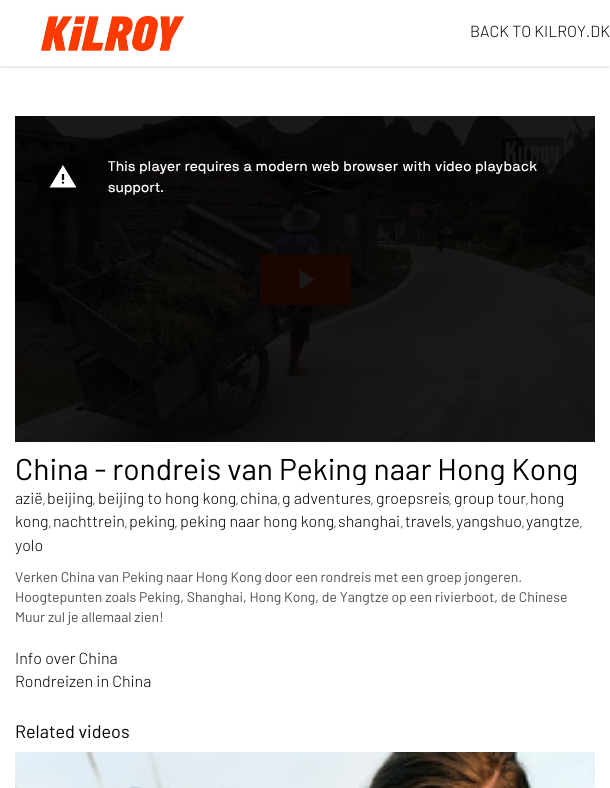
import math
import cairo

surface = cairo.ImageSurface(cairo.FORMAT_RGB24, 610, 788)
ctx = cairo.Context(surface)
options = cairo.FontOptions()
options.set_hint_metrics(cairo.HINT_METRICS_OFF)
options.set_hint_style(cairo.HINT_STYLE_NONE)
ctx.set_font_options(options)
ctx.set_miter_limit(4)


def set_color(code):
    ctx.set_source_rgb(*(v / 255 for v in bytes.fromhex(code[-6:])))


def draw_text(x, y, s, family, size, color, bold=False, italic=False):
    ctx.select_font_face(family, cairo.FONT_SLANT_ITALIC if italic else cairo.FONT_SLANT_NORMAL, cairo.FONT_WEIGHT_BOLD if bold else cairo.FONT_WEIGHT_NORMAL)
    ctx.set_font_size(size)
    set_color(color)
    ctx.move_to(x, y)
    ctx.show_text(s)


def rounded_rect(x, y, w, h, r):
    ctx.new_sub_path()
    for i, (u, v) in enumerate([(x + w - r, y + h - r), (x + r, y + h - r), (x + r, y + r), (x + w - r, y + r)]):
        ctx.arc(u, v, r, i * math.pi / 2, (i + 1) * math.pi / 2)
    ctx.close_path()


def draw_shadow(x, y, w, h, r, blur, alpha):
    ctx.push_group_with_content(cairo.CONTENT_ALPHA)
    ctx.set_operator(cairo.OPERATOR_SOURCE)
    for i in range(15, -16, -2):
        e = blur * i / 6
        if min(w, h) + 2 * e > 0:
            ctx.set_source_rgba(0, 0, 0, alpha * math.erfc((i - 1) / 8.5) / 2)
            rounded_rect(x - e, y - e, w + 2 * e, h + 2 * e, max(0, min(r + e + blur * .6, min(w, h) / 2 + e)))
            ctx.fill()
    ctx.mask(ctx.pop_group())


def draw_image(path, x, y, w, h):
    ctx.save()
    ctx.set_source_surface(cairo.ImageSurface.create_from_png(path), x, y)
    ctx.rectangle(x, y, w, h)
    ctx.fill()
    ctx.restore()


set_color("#ffffff")
ctx.paint()
ctx.save()
ctx.rectangle(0, 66, 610, 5)
ctx.clip()
set_color("#cccccc")
draw_shadow(1, -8, 608, 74, 0, 2.5, 1)
ctx.restore()
draw_image("assets/img1.png", 40, 15, 145, 38)
draw_text(470, 37, "BACK TO KILROY.DK", "Barlow Light", 16, "#000000")
draw_image("assets/img2.png", 15, 116, 580, 326)
ctx.save()
ctx.rectangle(15, 452, 580, 33)
ctx.clip()
draw_text(15, 480, "China - rondreis van Peking naar Hong Kong", "Barlow", 30, "#000000")
ctx.restore()
draw_text(15, 504, "azië", "Barlow Light", 16, "#000000")
draw_text(43, 504, ",", "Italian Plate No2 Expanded", 12, "#4d4d4d")
draw_text(47, 504, "beijing", "Barlow Light", 16, "#000000")
draw_text(93, 504, ",", "Italian Plate No2 Expanded", 12, "#4d4d4d")
draw_text(98, 504, "beijing to hong kong", "Barlow Light", 16, "#000000")
draw_text(236, 504, ",", "Italian Plate No2 Expanded", 12, "#4d4d4d")
draw_text(240, 504, "china", "Barlow Light", 16, "#000000")
draw_text(278, 504, ",", "Italian Plate No2 Expanded", 12, "#4d4d4d")
draw_text(282, 504, "g adventures", "Barlow Light", 16, "#000000")
draw_text(371, 504, ",", "Italian Plate No2 Expanded", 12, "#4d4d4d")
draw_text(376, 504, "groepsreis", "Barlow Light", 16, "#000000")
draw_text(449, 504, ",", "Italian Plate No2 Expanded", 12, "#4d4d4d")
draw_text(454, 504, "group tour", "Barlow Light", 16, "#000000")
draw_text(526, 504, ",", "Italian Plate No2 Expanded", 12, "#4d4d4d")
draw_text(530, 504, "hong", "Barlow Light", 16, "#000000")
draw_text(15, 527, "kong", "Barlow Light", 16, "#000000")
draw_text(49, 527, ",", "Italian Plate No2 Expanded", 12, "#4d4d4d")
draw_text(53, 527, "nachttrein", "Barlow Light", 16, "#000000")
draw_text(125, 527, ",", "Italian Plate No2 Expanded", 12, "#4d4d4d")
draw_text(129, 527, "peking", "Barlow Light", 16, "#000000")
draw_text(175, 527, ",", "Italian Plate No2 Expanded", 12, "#4d4d4d")
draw_text(180, 527, "peking naar hong kong", "Barlow Light", 16, "#000000")
draw_text(334, 527, ",", "Italian Plate No2 Expanded", 12, "#4d4d4d")
draw_text(338, 527, "shanghai", "Barlow Light", 16, "#000000")
draw_text(401, 527, ",", "Italian Plate No2 Expanded", 12, "#4d4d4d")
draw_text(405, 527, "travels", "Barlow Light", 16, "#000000")
draw_text(452, 527, ",", "Italian Plate No2 Expanded", 12, "#4d4d4d")
draw_text(456, 527, "yangshuo", "Barlow Light", 16, "#000000")
draw_text(522, 527, ",", "Italian Plate No2 Expanded", 12, "#4d4d4d")
draw_text(526, 527, "yangtze", "Barlow Light", 16, "#000000")
draw_text(580, 527, ",", "Italian Plate No2 Expanded", 12, "#4d4d4d")
draw_text(15, 551, "yolo", "Barlow Light", 16, "#000000")
draw_text(15, 582, "Verken China van Peking naar Hong Kong door een rondreis met een groep jongeren.", "Barlow", 14, "#4d4d4d")
draw_text(15, 602, "Hoogtepunten zoals Peking, Shanghai, Hong Kong, de Yangtze op een rivierboot, de Chinese", "Barlow", 14, "#4d4d4d")
draw_text(15, 622, "Muur zul je allemaal zien!", "Barlow", 14, "#4d4d4d")
draw_text(15, 664, "Info over China", "Barlow Light", 16, "#000000")
draw_text(15, 687, "Rondreizen in China", "Barlow Light", 16, "#000000")
draw_text(15, 738, "Related videos", "Barlow", 18, "#000000")
draw_image("assets/img3.png", 15, 752, 580, 36)
surface.write_to_png("output.png")
